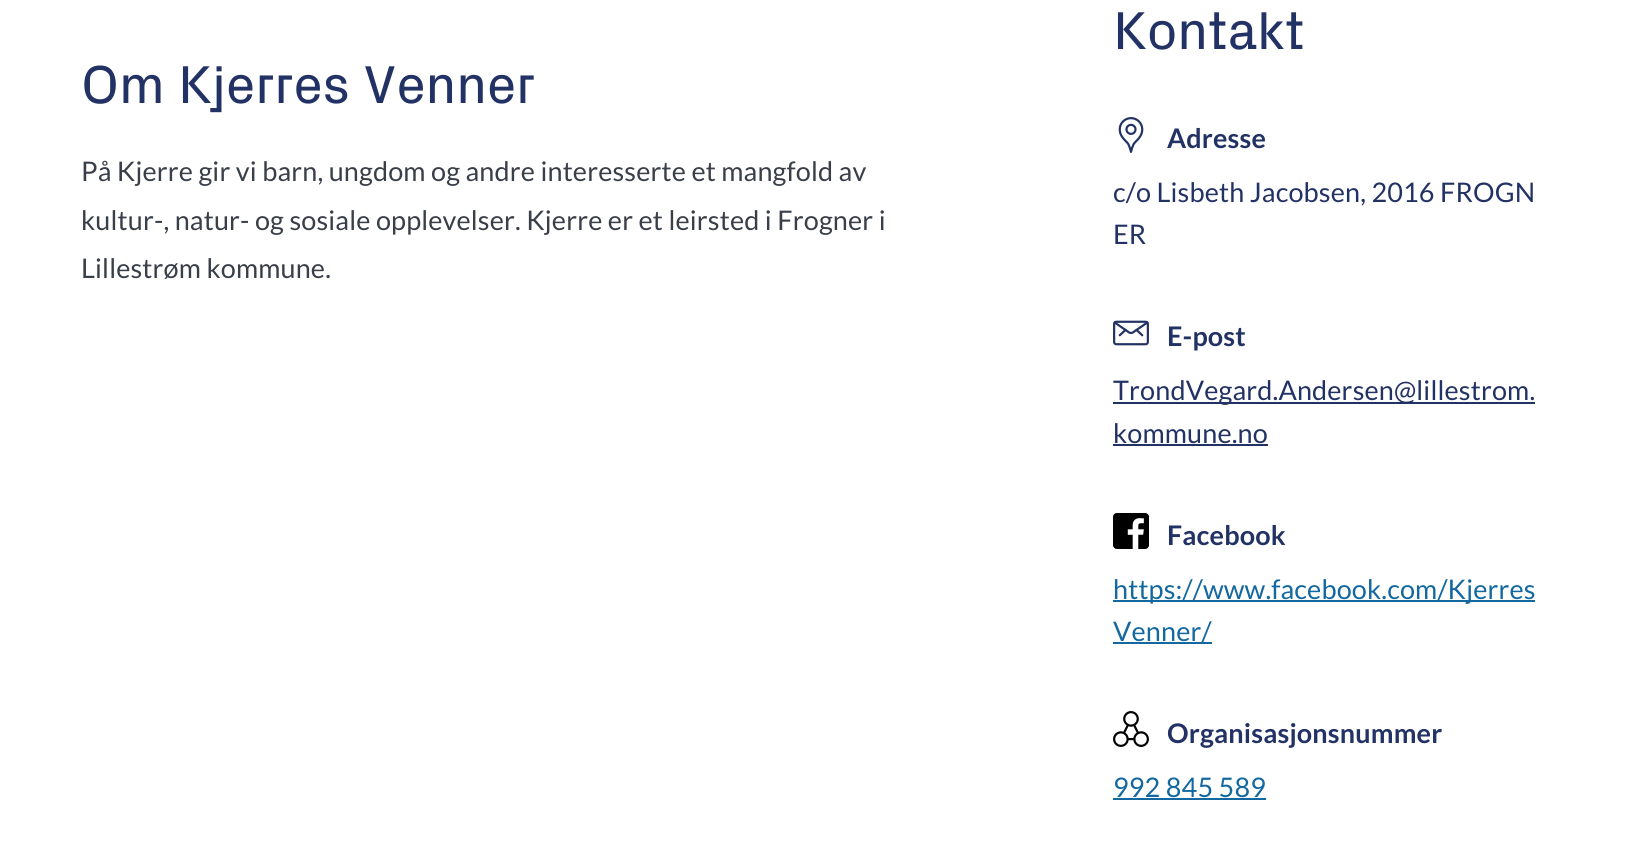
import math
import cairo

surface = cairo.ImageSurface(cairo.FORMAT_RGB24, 1626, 853)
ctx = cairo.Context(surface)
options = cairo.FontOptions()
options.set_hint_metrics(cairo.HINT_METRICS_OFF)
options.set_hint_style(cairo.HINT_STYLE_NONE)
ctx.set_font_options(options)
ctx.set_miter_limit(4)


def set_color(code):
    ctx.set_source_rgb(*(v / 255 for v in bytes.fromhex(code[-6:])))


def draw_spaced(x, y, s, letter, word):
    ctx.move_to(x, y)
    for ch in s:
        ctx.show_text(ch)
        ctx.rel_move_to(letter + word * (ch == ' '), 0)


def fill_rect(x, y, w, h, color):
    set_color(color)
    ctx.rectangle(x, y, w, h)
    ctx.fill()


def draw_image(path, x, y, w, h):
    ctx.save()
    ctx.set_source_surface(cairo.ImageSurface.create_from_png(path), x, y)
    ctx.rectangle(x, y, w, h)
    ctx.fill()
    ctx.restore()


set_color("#ffffff")
ctx.paint()
ctx.select_font_face("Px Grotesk")
ctx.set_font_size(54)
set_color("#233264")
draw_spaced(81, 103, "Om Kjerres Venner", -0.25, 0)
ctx.select_font_face("Lato")
ctx.set_font_size(27)
set_color("#393f49")
draw_spaced(81, 181, "På Kjerre gir vi barn, ungdom og andre interesserte et mangfold av", 0.15, 0)
draw_spaced(81, 230, "kultur-, natur- og sosiale opplevelser. Kjerre er et leirsted i Frogner i", 0.15, 0)
draw_spaced(81, 278, "Lillestrøm kommune.", 0.15, 0)
ctx.select_font_face("Px Grotesk")
ctx.set_font_size(54)
set_color("#233264")
draw_spaced(1113, 49, "Kontakt", -0.25, 0)
draw_image("assets/img1.png", 1118, 117, 26, 36)
ctx.select_font_face("Lato", cairo.FONT_SLANT_NORMAL, cairo.FONT_WEIGHT_BOLD)
ctx.set_font_size(27)
draw_spaced(1167, 148, "Adresse", 0.15, 0)
ctx.select_font_face("Lato")
draw_spaced(1113, 202, "c/o Lisbeth Jacobsen, 2016 FROGN", 0.15, 0)
draw_spaced(1113, 244, "ER", 0.15, 0)
draw_image("assets/img2.png", 1113, 320, 36, 26)
ctx.select_font_face("Lato", cairo.FONT_SLANT_NORMAL, cairo.FONT_WEIGHT_BOLD)
draw_spaced(1167, 346, "E-post", 0.15, 0)
fill_rect(1113, 402, 422, 2, "#233264")
ctx.select_font_face("Lato")
draw_spaced(1113, 400, "TrondVegard.Andersen@lillestrom.", 0.15, 0)
draw_spaced(1113, 443, "kommune.no", 0.15, 0)
fill_rect(1113, 444, 155, 2, "#233264")
draw_image("assets/img3.png", 1113, 513, 36, 36)
ctx.select_font_face("Lato", cairo.FONT_SLANT_NORMAL, cairo.FONT_WEIGHT_BOLD)
draw_spaced(1167, 545, "Facebook", 0.15, 0)
fill_rect(1113, 600, 422, 2, "#1368a0")
ctx.select_font_face("Lato")
draw_spaced(1113, 599, "https://www.facebook.com/Kjerres", 0.15, 0)
fill_rect(1113, 642, 99, 2, "#1368a0")
draw_spaced(1113, 641, "Venner/", 0.15, 0)
draw_image("assets/img4.png", 1113, 711, 36, 36)
ctx.select_font_face("Lato", cairo.FONT_SLANT_NORMAL, cairo.FONT_WEIGHT_BOLD)
set_color("#233264")
draw_spaced(1167, 743, "Organisasjonsnummer", 0.15, 0)
ctx.select_font_face("Lato")
set_color("#1368a0")
draw_spaced(1113, 797, "992 845 589", 0.15, 0)
fill_rect(1113, 798, 153, 2, "#1368a0")
surface.write_to_png("output.png")
